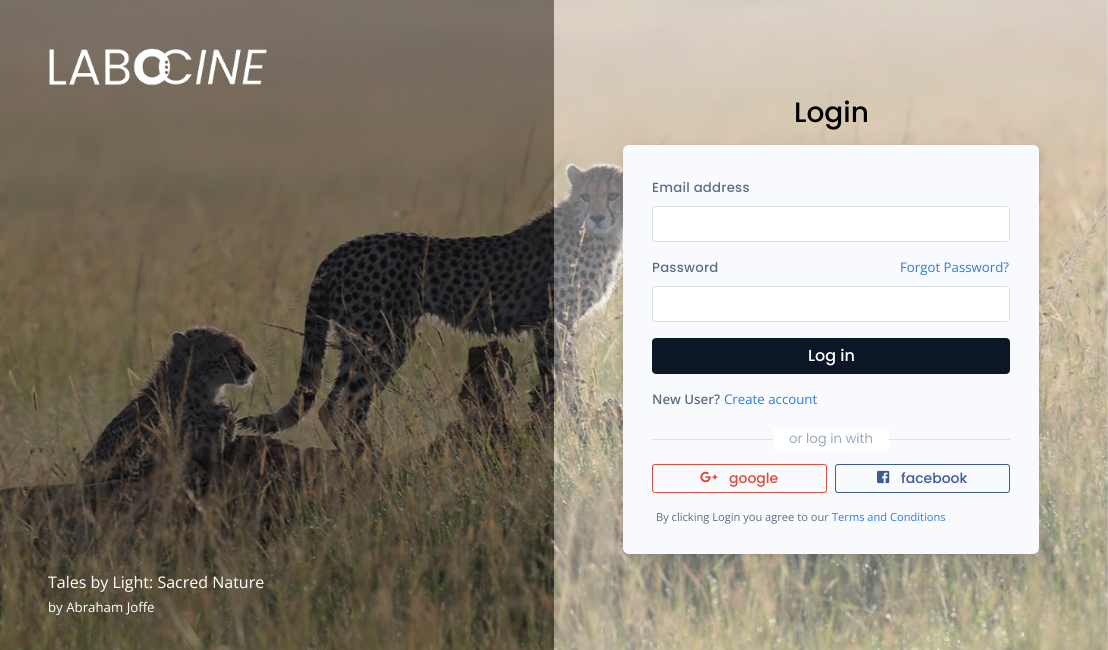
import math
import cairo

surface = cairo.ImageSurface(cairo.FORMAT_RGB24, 1108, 650)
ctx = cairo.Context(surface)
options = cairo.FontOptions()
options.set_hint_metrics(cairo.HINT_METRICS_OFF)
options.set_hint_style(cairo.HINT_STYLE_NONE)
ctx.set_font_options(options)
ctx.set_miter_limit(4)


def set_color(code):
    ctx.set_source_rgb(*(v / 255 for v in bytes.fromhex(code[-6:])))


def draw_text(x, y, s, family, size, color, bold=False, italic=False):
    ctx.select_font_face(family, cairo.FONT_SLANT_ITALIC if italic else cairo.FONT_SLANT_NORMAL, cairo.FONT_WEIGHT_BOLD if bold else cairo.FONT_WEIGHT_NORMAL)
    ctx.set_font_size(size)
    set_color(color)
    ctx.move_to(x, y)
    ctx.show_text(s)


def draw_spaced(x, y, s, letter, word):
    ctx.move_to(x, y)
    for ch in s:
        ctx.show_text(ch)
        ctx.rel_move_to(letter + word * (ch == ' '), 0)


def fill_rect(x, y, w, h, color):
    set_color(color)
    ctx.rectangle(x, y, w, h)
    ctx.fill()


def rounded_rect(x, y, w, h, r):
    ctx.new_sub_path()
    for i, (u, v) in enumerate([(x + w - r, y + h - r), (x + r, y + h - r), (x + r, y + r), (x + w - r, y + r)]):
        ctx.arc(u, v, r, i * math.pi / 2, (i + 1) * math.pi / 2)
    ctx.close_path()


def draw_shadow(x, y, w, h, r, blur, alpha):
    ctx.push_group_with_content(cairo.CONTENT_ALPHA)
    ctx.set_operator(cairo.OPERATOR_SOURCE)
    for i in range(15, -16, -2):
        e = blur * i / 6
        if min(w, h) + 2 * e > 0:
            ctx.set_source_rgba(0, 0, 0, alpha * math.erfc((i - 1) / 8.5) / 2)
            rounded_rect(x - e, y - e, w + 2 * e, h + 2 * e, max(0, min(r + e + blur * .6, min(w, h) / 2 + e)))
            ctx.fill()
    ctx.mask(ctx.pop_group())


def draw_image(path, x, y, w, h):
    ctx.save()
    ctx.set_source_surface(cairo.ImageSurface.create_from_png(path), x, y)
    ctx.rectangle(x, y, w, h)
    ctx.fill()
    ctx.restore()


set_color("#ffffff")
ctx.paint()
draw_image("assets/img1.png", 0, 0, 1108, 650)
ctx.set_source_rgba(0.996, 1, 0.992, 0.3)
ctx.rectangle(554, 0, 554, 650)
ctx.fill()
draw_text(794, 122, "Login", "Poppins Medium", 28, "#000000")
set_color("#000000")
draw_shadow(623, 148, 416, 409, 6, 3, 0.07)
set_color("#414558")
draw_shadow(623, 152, 416, 409, 6, 7, 0.1)
set_color("#f9fafd")
rounded_rect(623, 145, 416, 409, 6)
ctx.fill()
ctx.set_font_size(13.25)
set_color("#5e6e82")
draw_spaced(652, 192, "Email address", 0.25, 0)
set_color("#ffffff")
rounded_rect(652.5, 206.5, 357, 35, 3.5)
ctx.fill_preserve()
set_color("#d8e2ef")
ctx.set_line_width(1)
ctx.stroke()
set_color("#5e6e82")
draw_spaced(652, 272, "Password", 0.25, 0)
draw_text(900, 272, "Forgot Password?", "Open Sans", 13.25, "#2c7be5")
set_color("#ffffff")
rounded_rect(652.5, 286.5, 357, 35, 3.5)
ctx.fill_preserve()
set_color("#d8e2ef")
ctx.stroke()
set_color("#0b1727")
rounded_rect(652.5, 338.5, 357, 35, 3.5)
ctx.fill_preserve()
ctx.stroke()
draw_text(808, 361, "Log in", "Poppins Medium", 16, "#ffffff")
draw_text(652, 404, "New User?", "Open Sans SemiBold", 13.25, "#5e6e82")
draw_text(724, 404, "Create account", "Open Sans", 13.25, "#2c7be5")
fill_rect(652, 439, 358, 1, "#e0e1e4")
fill_rect(773, 429, 116, 20, "#ffffff")
draw_text(789, 443, "or log in with", "Poppins", 13.25, "#9da9bb")
rounded_rect(652.5, 464.5, 174, 28, 2.5)
set_color("#dd4b39")
ctx.stroke()
draw_image("assets/img2.png", 700, 471, 18, 12)
draw_text(729, 483, "google", "Poppins Medium", 14, "#dd4b39")
rounded_rect(835.5, 464.5, 174, 28, 2.5)
set_color("#3c5a99")
ctx.stroke()
draw_image("assets/img3.png", 877, 470, 13, 14)
draw_text(901, 483, "facebook", "Poppins Medium", 14, "#3c5a99")
draw_text(656, 521, "By clicking Login you agree to our", "Open Sans", 11.1, "#5e6e82")
draw_text(832, 521, "Terms and Conditions", "Open Sans", 11.1, "#2c7be5")
ctx.set_source_rgba(0, 0, 0, 0.4)
ctx.rectangle(0, 0, 554, 650)
ctx.fill()
draw_image("assets/img4.png", 49, 48, 218, 38)
draw_text(48, 588, "Tales by Light: Sacred Nature", "Open Sans", 16, "#ffffff")
draw_text(48, 612, "by Abraham Joffe", "Open Sans", 13.25, "#ffffff")
surface.write_to_png("output.png")
